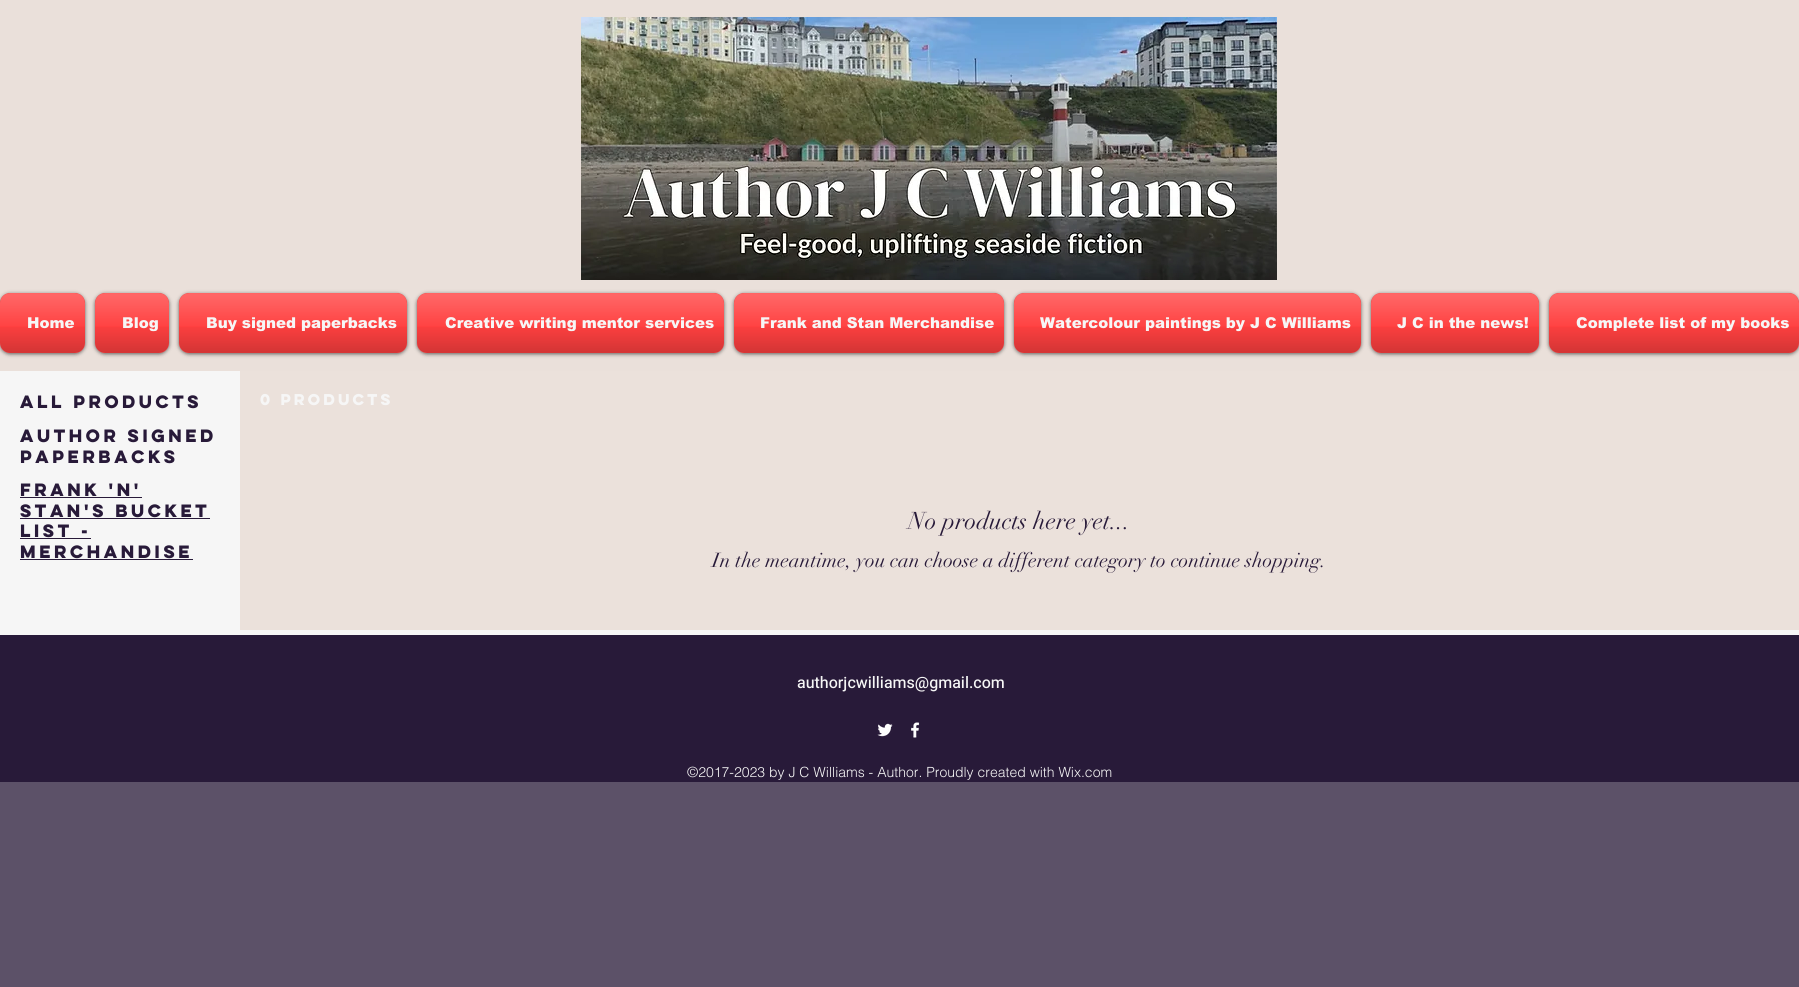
import math
import cairo

surface = cairo.ImageSurface(cairo.FORMAT_RGB24, 1799, 987)
ctx = cairo.Context(surface)
options = cairo.FontOptions()
options.set_hint_metrics(cairo.HINT_METRICS_OFF)
options.set_hint_style(cairo.HINT_STYLE_NONE)
ctx.set_font_options(options)
ctx.set_miter_limit(4)


def set_color(code):
    ctx.set_source_rgb(*(v / 255 for v in bytes.fromhex(code[-6:])))


def draw_text(x, y, s, family, size, color, bold=False, italic=False):
    ctx.select_font_face(family, cairo.FONT_SLANT_ITALIC if italic else cairo.FONT_SLANT_NORMAL, cairo.FONT_WEIGHT_BOLD if bold else cairo.FONT_WEIGHT_NORMAL)
    ctx.set_font_size(size)
    set_color(color)
    ctx.move_to(x, y)
    ctx.show_text(s)


def fill_rect(x, y, w, h, color):
    set_color(color)
    ctx.rectangle(x, y, w, h)
    ctx.fill()


def rounded_rect(x, y, w, h, r):
    ctx.new_sub_path()
    for i, (u, v) in enumerate([(x + w - r, y + h - r), (x + r, y + h - r), (x + r, y + r), (x + w - r, y + r)]):
        ctx.arc(u, v, r, i * math.pi / 2, (i + 1) * math.pi / 2)
    ctx.close_path()


def draw_shadow(x, y, w, h, r, blur, alpha):
    ctx.push_group_with_content(cairo.CONTENT_ALPHA)
    ctx.set_operator(cairo.OPERATOR_SOURCE)
    for i in range(15, -16, -2):
        e = blur * i / 6
        if min(w, h) + 2 * e > 0:
            ctx.set_source_rgba(0, 0, 0, alpha * math.erfc((i - 1) / 8.5) / 2)
            rounded_rect(x - e, y - e, w + 2 * e, h + 2 * e, max(0, min(r + e + blur * .6, min(w, h) / 2 + e)))
            ctx.fill()
    ctx.mask(ctx.pop_group())


def draw_image(path, x, y, w, h):
    ctx.save()
    ctx.set_source_surface(cairo.ImageSurface.create_from_png(path), x, y)
    ctx.rectangle(x, y, w, h)
    ctx.fill()
    ctx.restore()


set_color("#5c5168")
ctx.paint()
fill_rect(0, 0, 1799, 371, "#eae0da")
draw_image("assets/img1.png", 581, 17, 696, 263)
set_color("#000000")
draw_shadow(0, 294, 85, 60, 10, 2, 0.6)
set_color("#ff4040")
rounded_rect(0, 293, 85, 60, 10)
ctx.fill()
draw_image("assets/img2.png", 0, 293, 85, 33)
draw_image("assets/img3.png", 0, 327, 85, 26)
draw_text(27, 328, "Home", "arial Black", 15, "#f6f6f6")
set_color("#000000")
draw_shadow(95, 294, 74, 60, 10, 2, 0.6)
set_color("#ff4040")
rounded_rect(95, 293, 74, 60, 10)
ctx.fill()
draw_image("assets/img4.png", 95, 293, 74, 33)
draw_image("assets/img5.png", 95, 327, 74, 26)
draw_text(122, 328, "Blog", "arial Black", 15, "#f6f6f6")
set_color("#000000")
draw_shadow(179, 294, 228, 60, 10, 2, 0.6)
set_color("#ff4040")
rounded_rect(179, 293, 228, 60, 10)
ctx.fill()
draw_image("assets/img6.png", 179, 293, 228, 33)
draw_image("assets/img7.png", 179, 327, 228, 26)
draw_text(206, 328, "Buy signed paperbacks", "arial Black", 15, "#f6f6f6")
set_color("#000000")
draw_shadow(417, 294, 307, 60, 10, 2, 0.6)
set_color("#ff4040")
rounded_rect(417, 293, 307, 60, 10)
ctx.fill()
draw_image("assets/img8.png", 417, 293, 307, 33)
draw_image("assets/img9.png", 417, 327, 307, 26)
draw_text(445, 328, "Creative writing mentor services", "arial Black", 15, "#f6f6f6")
set_color("#000000")
draw_shadow(734, 294, 270, 60, 10, 2, 0.6)
set_color("#ff4040")
rounded_rect(734, 293, 270, 60, 10)
ctx.fill()
draw_image("assets/img10.png", 734, 293, 270, 33)
draw_image("assets/img11.png", 734, 327, 270, 26)
draw_text(760, 328, "Frank and Stan Merchandise", "arial Black", 15, "#f6f6f6")
set_color("#000000")
draw_shadow(1014, 294, 347, 60, 10, 2, 0.6)
set_color("#ff4040")
rounded_rect(1014, 293, 347, 60, 10)
ctx.fill()
draw_image("assets/img12.png", 1014, 293, 347, 33)
draw_image("assets/img13.png", 1014, 327, 347, 26)
draw_text(1040, 328, "Watercolour paintings by J C Williams", "arial Black", 15, "#f6f6f6")
set_color("#000000")
draw_shadow(1371, 294, 168, 60, 10, 2, 0.6)
set_color("#ff4040")
rounded_rect(1371, 293, 168, 60, 10)
ctx.fill()
draw_image("assets/img14.png", 1371, 293, 168, 33)
draw_image("assets/img15.png", 1371, 327, 168, 26)
draw_text(1397, 328, "J C in the news!", "arial Black", 15, "#f6f6f6")
set_color("#000000")
draw_shadow(1549, 294, 250, 60, 10, 2, 0.6)
set_color("#ff4040")
rounded_rect(1549, 293, 250, 60, 10)
ctx.fill()
draw_image("assets/img16.png", 1549, 293, 250, 33)
draw_image("assets/img17.png", 1549, 327, 250, 26)
draw_text(1576, 328, "Complete list of my books", "arial Black", 15, "#f6f6f6")
fill_rect(0, 371, 1799, 264, "#f6f6f6")
draw_text(20, 408, "All Products", "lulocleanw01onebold", 16, "#281a39", bold=True)
draw_text(20, 442, "Author signed", "lulocleanw01onebold", 16, "#281a39", bold=True)
draw_text(20, 463, "paperbacks", "lulocleanw01onebold", 16, "#281a39", bold=True)
draw_text(20, 496, "Frank 'n'", "lulocleanw01onebold", 16, "#281a39", bold=True)
fill_rect(20, 497, 122, 1, "#281a39")
draw_text(20, 517, "Stan's Bucket", "lulocleanw01onebold", 16, "#281a39", bold=True)
fill_rect(20, 518, 190, 1, "#281a39")
draw_text(20, 537, "List -", "lulocleanw01onebold", 16, "#281a39", bold=True)
fill_rect(20, 538, 71, 1, "#281a39")
draw_text(20, 558, "Merchandise", "lulocleanw01onebold", 16, "#281a39", bold=True)
fill_rect(20, 559, 173, 1, "#281a39")
fill_rect(240, 371, 1559, 259, "#ebe1db")
draw_text(260, 405, "0 products", "lulocleanw01onebold", 14, "#f6f6f6", bold=True)
draw_text(908, 529, "No products here yet...", "didot", 24, "#281a39")
draw_text(712, 567, "In the meantime, you can choose a different category to continue shopping.", "didot", 20, "#281a39")
fill_rect(0, 635, 1799, 147, "#281a39")
draw_text(797, 688, "authorjcwilliams@gmail.com", "Heebo Medium", 16, "#f6f6f6")
draw_image("assets/img18.png", 877, 723, 16, 14)
draw_image("assets/img19.png", 911, 722, 9, 16)
draw_text(687, 777, "©2017-2023 by J C Williams - Author. Proudly created with Wix.com", "helvetica Light", 14, "#f6f6f6")
surface.write_to_png("output.png")
